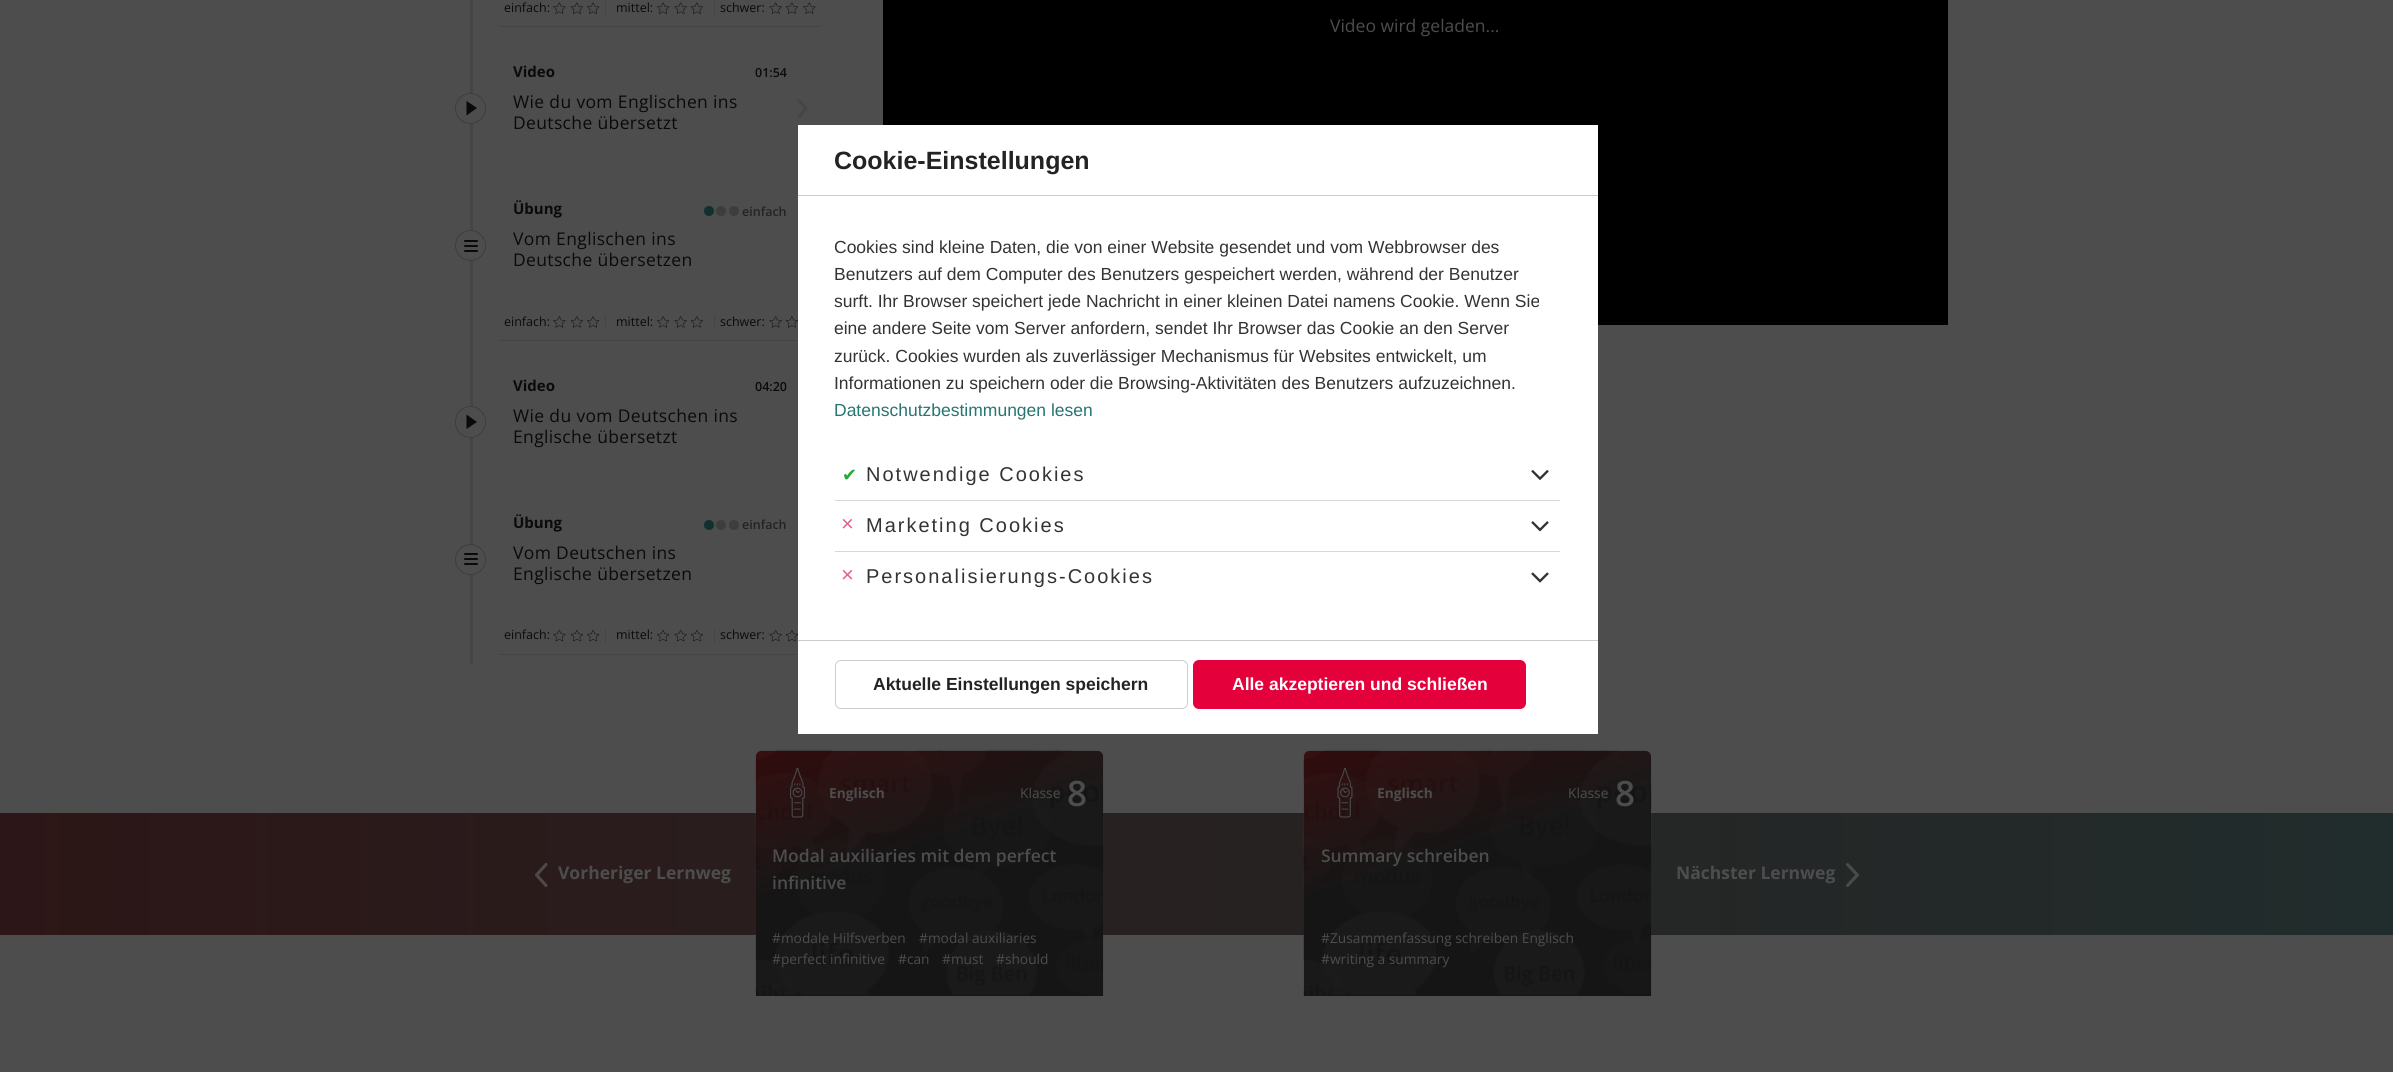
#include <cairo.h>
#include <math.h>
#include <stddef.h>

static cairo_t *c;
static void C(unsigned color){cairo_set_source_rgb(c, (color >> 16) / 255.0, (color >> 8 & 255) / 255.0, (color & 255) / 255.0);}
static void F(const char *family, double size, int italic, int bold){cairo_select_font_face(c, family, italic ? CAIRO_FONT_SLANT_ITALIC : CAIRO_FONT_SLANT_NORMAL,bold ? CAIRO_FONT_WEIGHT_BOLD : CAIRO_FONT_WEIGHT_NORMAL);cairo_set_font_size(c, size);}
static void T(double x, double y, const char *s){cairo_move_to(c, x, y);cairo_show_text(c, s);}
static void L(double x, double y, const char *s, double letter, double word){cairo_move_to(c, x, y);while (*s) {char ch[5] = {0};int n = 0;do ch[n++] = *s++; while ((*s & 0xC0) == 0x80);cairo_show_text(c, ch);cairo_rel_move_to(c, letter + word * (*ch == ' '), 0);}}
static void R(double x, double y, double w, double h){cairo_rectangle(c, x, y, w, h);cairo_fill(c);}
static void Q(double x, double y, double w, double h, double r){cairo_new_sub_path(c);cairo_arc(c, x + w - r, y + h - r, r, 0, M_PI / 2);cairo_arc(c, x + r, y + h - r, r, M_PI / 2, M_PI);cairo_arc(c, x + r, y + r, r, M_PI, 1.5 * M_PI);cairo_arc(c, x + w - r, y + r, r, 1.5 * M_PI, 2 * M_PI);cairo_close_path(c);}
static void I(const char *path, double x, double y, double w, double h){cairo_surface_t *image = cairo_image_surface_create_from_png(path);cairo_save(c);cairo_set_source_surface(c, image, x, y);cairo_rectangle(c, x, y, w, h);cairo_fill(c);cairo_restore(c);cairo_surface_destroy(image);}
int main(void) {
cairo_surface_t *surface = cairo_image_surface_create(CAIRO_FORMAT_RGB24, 2393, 1072);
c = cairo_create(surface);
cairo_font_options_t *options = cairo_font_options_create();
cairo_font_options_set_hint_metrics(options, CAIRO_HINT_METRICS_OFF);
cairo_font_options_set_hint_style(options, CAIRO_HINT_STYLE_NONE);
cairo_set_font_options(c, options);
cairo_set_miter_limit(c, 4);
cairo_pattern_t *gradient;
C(0x4d4d4d);
cairo_paint(c);
C(0x454545);
R(470,0,3,94);
F("Open Sans",12.5,0,0);
C(0x0a0a0a);
T(504,12,"einfach:");
I("1.png",553,2,13,12);
I("2.png",570,2,13,12);
I("3.png",587,2,13,12);
C(0x454545);
R(605,1,1,14);
C(0x0a0a0a);
T(616,12,"mittel:");
I("3.png",657,2,13,12);
I("4.png",674,2,13,12);
I("2.png",690,2,13,12);
C(0x454545);
R(714,1,1,14);
C(0x0a0a0a);
T(720,12,"schwer:");
I("4.png",769,2,13,12);
I("2.png",785,2,13,12);
I("1.png",803,2,13,12);
C(0x454545);
R(499,26,322,1);
R(470,123,3,108);
C(0x4d4d4d);
cairo_arc(c,470.5,108.5,15,0,2 * M_PI);
cairo_fill_preserve(c);
C(0x3d3d3d);
cairo_set_line_width(c,1);
cairo_stroke(c);
C(0x0a0a0a);
cairo_new_path(c);
cairo_move_to(c,466.5,101);
cairo_line_to(c,477,108);
cairo_line_to(c,466.5,115.5);
cairo_close_path(c);
cairo_fill(c);
cairo_new_path(c);
cairo_move_to(c,799,100.5);
cairo_line_to(c,806,108.5);
cairo_line_to(c,799,117);
C(0x454545);
cairo_set_line_width(c,3.1);
cairo_set_line_cap(c,CAIRO_LINE_CAP_ROUND);
cairo_set_line_join(c,CAIRO_LINE_JOIN_ROUND);
cairo_stroke(c);
F("Open Sans",15,0,1);
C(0x0a0a0a);
T(513,77,"Video");
F("Open Sans SemiBold",12.5,0,0);
T(755,77,"01:54");
F("Open Sans",17.5,0,0);
L(513,108,"Wie du vom Englischen ins",.35,0);
L(513,129,"Deutsche übersetzt",.35,0);
C(0x454545);
R(470,260,3,147);
C(0x4d4d4d);
cairo_new_path(c);
cairo_arc(c,470.5,245.5,15,0,2 * M_PI);
cairo_fill_preserve(c);
C(0x3d3d3d);
cairo_set_line_width(c,1);
cairo_set_line_cap(c,CAIRO_LINE_CAP_BUTT);
cairo_set_line_join(c,CAIRO_LINE_JOIN_MITER);
cairo_stroke(c);
C(0x0a0a0a);
Q(464,240,14,2,1);
cairo_fill(c);
Q(464,245,14,2,1);
cairo_fill(c);
Q(464,250,14,2,1);
cairo_fill(c);
cairo_new_path(c);
cairo_move_to(c,799,238);
cairo_line_to(c,806,246);
cairo_line_to(c,799,254.5);
C(0x454545);
cairo_set_line_width(c,3.1);
cairo_set_line_cap(c,CAIRO_LINE_CAP_ROUND);
cairo_set_line_join(c,CAIRO_LINE_JOIN_ROUND);
cairo_stroke(c);
F("Open Sans",15,0,1);
C(0x0a0a0a);
T(513,214,"Übung");
C(0x103130);
cairo_new_path(c);
cairo_arc(c,709,211,5,0,2 * M_PI);
cairo_fill(c);
C(0x3d3d3d);
cairo_arc(c,721,211,5,0,2 * M_PI);
cairo_fill(c);
cairo_arc(c,734,211,5,0,2 * M_PI);
cairo_fill(c);
F("Open Sans SemiBold",12.5,0,0);
C(0x232323);
T(742,216,"einfach");
F("Open Sans",17.5,0,0);
C(0x0a0a0a);
L(513,245,"Vom Englischen ins",.35,0);
L(513,266,"Deutsche übersetzen",.35,0);
F("Open Sans",12.5,0,0);
T(504,326,"einfach:");
I("5.png",553,316,13,12);
I("6.png",570,316,13,12);
I("7.png",587,316,13,12);
C(0x454545);
R(605,315,1,14);
C(0x0a0a0a);
T(616,326,"mittel:");
I("7.png",657,316,13,12);
I("8.png",674,316,13,12);
I("6.png",690,316,13,12);
C(0x454545);
R(714,315,1,14);
C(0x0a0a0a);
T(720,326,"schwer:");
I("8.png",769,316,13,12);
I("6.png",785,316,13,12);
C(0x454545);
R(499,340,299,1);
R(470,437,3,108);
C(0x4d4d4d);
Q(455.5,406.5,30,31,15);
cairo_fill_preserve(c);
C(0x3d3d3d);
cairo_set_line_width(c,1);
cairo_set_line_cap(c,CAIRO_LINE_CAP_BUTT);
cairo_set_line_join(c,CAIRO_LINE_JOIN_MITER);
cairo_stroke(c);
C(0x0a0a0a);
cairo_new_path(c);
cairo_move_to(c,466.5,414.5);
cairo_line_to(c,477,422);
cairo_line_to(c,466.5,429);
cairo_close_path(c);
cairo_fill(c);
cairo_new_path(c);
cairo_move_to(c,799,414.5);
cairo_line_to(c,806,422.5);
cairo_line_to(c,799,430.5);
C(0x454545);
cairo_set_line_width(c,3.1);
cairo_set_line_cap(c,CAIRO_LINE_CAP_ROUND);
cairo_set_line_join(c,CAIRO_LINE_JOIN_ROUND);
cairo_stroke(c);
F("Open Sans",15,0,1);
C(0x0a0a0a);
T(513,391,"Video");
F("Open Sans SemiBold",12.5,0,0);
T(755,391,"04:20");
F("Open Sans",17.5,0,0);
L(513,422,"Wie du vom Deutschen ins",.35,0);
L(513,443,"Englische übersetzt",.35,0);
C(0x454545);
R(470,574,3,90);
C(0x4d4d4d);
cairo_new_path(c);
cairo_arc(c,470.5,559.5,15,0,2 * M_PI);
cairo_fill_preserve(c);
C(0x3d3d3d);
cairo_set_line_width(c,1);
cairo_set_line_cap(c,CAIRO_LINE_CAP_BUTT);
cairo_set_line_join(c,CAIRO_LINE_JOIN_MITER);
cairo_stroke(c);
C(0x0a0a0a);
Q(464,553,14,2,1);
cairo_fill(c);
Q(464,558,14,2,1);
cairo_fill(c);
Q(464,563,14,2,1);
cairo_fill(c);
cairo_new_path(c);
cairo_move_to(c,799,552);
cairo_line_to(c,806,560);
cairo_line_to(c,799,568);
C(0x454545);
cairo_set_line_width(c,3.1);
cairo_set_line_cap(c,CAIRO_LINE_CAP_ROUND);
cairo_set_line_join(c,CAIRO_LINE_JOIN_ROUND);
cairo_stroke(c);
F("Open Sans",15,0,1);
C(0x0a0a0a);
T(513,528,"Übung");
C(0x103130);
cairo_new_path(c);
cairo_arc(c,709,525,5,0,2 * M_PI);
cairo_fill(c);
C(0x3d3d3d);
cairo_arc(c,721,525,5,0,2 * M_PI);
cairo_fill(c);
cairo_arc(c,734,525,5,0,2 * M_PI);
cairo_fill(c);
F("Open Sans SemiBold",12.5,0,0);
C(0x232323);
T(742,529,"einfach");
F("Open Sans",17.5,0,0);
C(0x0a0a0a);
L(513,559,"Vom Deutschen ins",.35,0);
L(513,580,"Englische übersetzen",.35,0);
F("Open Sans",12.5,0,0);
T(504,639,"einfach:");
I("9.png",553,630,13,12);
I("10.png",570,630,13,12);
I("11.png",587,630,13,12);
C(0x454545);
R(605,629,1,14);
C(0x0a0a0a);
T(616,639,"mittel:");
I("11.png",657,630,13,12);
I("12.png",674,630,13,12);
I("10.png",690,630,13,12);
C(0x454545);
R(714,629,1,14);
C(0x0a0a0a);
T(720,639,"schwer:");
I("12.png",769,630,13,12);
I("10.png",785,630,13,12);
C(0x454545);
R(499,654,299,1);
C(0x000000);
R(883,0,1065,325);
F("Open Sans",17.5,0,0);
C(0x4d4d4d);
T(1330,32,"Video wird geladen...");
gradient = cairo_pattern_create_linear(-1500,874,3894,874);
cairo_pattern_add_color_stop_rgba(gradient,0,0.204,0.031,0.035,1);
cairo_pattern_add_color_stop_rgba(gradient,1,0.102,0.231,0.227,1);
cairo_set_source(c,gradient);
cairo_pattern_destroy(gradient);
R(0,813,2393,122);
cairo_new_path(c);
cairo_move_to(c,546,864.5);
cairo_line_to(c,536.5,875);
cairo_line_to(c,546,885.5);
C(0x4b4a4a);
cairo_stroke(c);
F("Open Sans",17.5,0,1);
C(0x4d4d4d);
T(558,879,"Vorheriger Lernweg");
gradient = cairo_pattern_create_linear(877,712,982,1035);
cairo_pattern_add_color_stop_rgba(gradient,0,0.204,0.031,0.035,1);
cairo_pattern_add_color_stop_rgba(gradient,.42,0.075,0.075,0.075,1);
cairo_set_source(c,gradient);
cairo_pattern_destroy(gradient);
cairo_new_path(c);
cairo_move_to(c,762,751);
cairo_line_to(c,1097,751);
cairo_curve_to(c,1100.5,751,1103,753.5,1103,757);
cairo_line_to(c,1103,996);
cairo_line_to(c,756,996);
cairo_line_to(c,756,757);
cairo_curve_to(c,756,753.5,758.5,751,762,751);
cairo_close_path(c);
cairo_fill(c);
I("13.png",755,749,349,247);
gradient = cairo_pattern_create_linear(877,712,982,1035);
cairo_pattern_add_color_stop_rgba(gradient,0,0.204,0.031,0.035,.85);
cairo_pattern_add_color_stop_rgba(gradient,.42,0.075,0.075,0.075,.85);
cairo_set_source(c,gradient);
cairo_pattern_destroy(gradient);
cairo_new_path(c);
cairo_move_to(c,762,751);
cairo_line_to(c,1097,751);
cairo_curve_to(c,1100.5,751,1103,753.5,1103,757);
cairo_line_to(c,1103,996);
cairo_line_to(c,756,996);
cairo_line_to(c,756,757);
cairo_curve_to(c,756,753.5,758.5,751,762,751);
cairo_close_path(c);
cairo_fill(c);
I("14.png",790,768,15,50);
F("Open Sans",13.75,0,1);
C(0x4d4d4d);
T(829,798,"Englisch");
F("Open Sans",13.75,0,0);
T(1020,798,"Klasse");
F("Open Sans SemiBold",35,0,0);
T(1067,806,"8");
F("Open Sans SemiBold",17.5,0,0);
T(772,862,"Modal auxiliaries mit dem perfect");
T(772,889,"infinitive");
F("Open Sans",13.75,0,0);
T(772,943,"#modale Hilfsverben");
T(919,943,"#modal auxiliaries");
T(772,964,"#perfect infinitive");
T(898,964,"#can");
T(942,964,"#must");
T(996,964,"#should");
gradient = cairo_pattern_create_linear(1425,712,1530,1036);
cairo_pattern_add_color_stop_rgba(gradient,0,0.204,0.031,0.035,1);
cairo_pattern_add_color_stop_rgba(gradient,.42,0.075,0.075,0.075,1);
cairo_set_source(c,gradient);
cairo_pattern_destroy(gradient);
cairo_new_path(c);
cairo_move_to(c,1310,751);
cairo_line_to(c,1645,751);
cairo_curve_to(c,1648.5,751,1651,753.5,1651,757);
cairo_line_to(c,1651,996);
cairo_line_to(c,1304,996);
cairo_line_to(c,1304,757);
cairo_curve_to(c,1304,753.5,1306.5,751,1310,751);
cairo_close_path(c);
cairo_fill(c);
I("15.png",1303,749,349,247);
gradient = cairo_pattern_create_linear(1425,712,1530,1036);
cairo_pattern_add_color_stop_rgba(gradient,0,0.204,0.031,0.035,.85);
cairo_pattern_add_color_stop_rgba(gradient,.42,0.075,0.075,0.075,.85);
cairo_set_source(c,gradient);
cairo_pattern_destroy(gradient);
cairo_new_path(c);
cairo_move_to(c,1310,751);
cairo_line_to(c,1645,751);
cairo_curve_to(c,1648.5,751,1651,753.5,1651,757);
cairo_line_to(c,1651,996);
cairo_line_to(c,1304,996);
cairo_line_to(c,1304,757);
cairo_curve_to(c,1304,753.5,1306.5,751,1310,751);
cairo_close_path(c);
cairo_fill(c);
I("16.png",1337,768,16,50);
F("Open Sans",13.75,0,1);
C(0x4d4d4d);
T(1377,798,"Englisch");
F("Open Sans",13.75,0,0);
T(1568,798,"Klasse");
F("Open Sans SemiBold",35,0,0);
T(1615,806,"8");
F("Open Sans SemiBold",17.5,0,0);
T(1321,862,"Summary schreiben");
F("Open Sans",13.75,0,0);
T(1321,943,"#Zusammenfassung schreiben Englisch");
T(1321,964,"#writing a summary");
F("Open Sans",17.5,0,1);
T(1676,879,"Nächster Lernweg");
cairo_new_path(c);
cairo_move_to(c,1847.5,864.5);
cairo_line_to(c,1857.5,875);
cairo_line_to(c,1847.5,885.5);
C(0x4a4b4b);
cairo_stroke(c);
C(0xffffff);
R(798,125,800,609);
C(0xcccccc);
R(798,195,800,1);
F("Liberation Sans",25,0,1);
C(0x232323);
T(834,169,"Cookie-Einstellungen");
F("Liberation Sans",17.5,0,0);
C(0x333333);
T(834,253,"Cookies sind kleine Daten, die von einer Website gesendet und vom Webbrowser des");
T(834,280,"Benutzers auf dem Computer des Benutzers gespeichert werden, während der Benutzer");
T(834,307,"surft. Ihr Browser speichert jede Nachricht in einer kleinen Datei namens Cookie. Wenn Sie");
T(834,334,"eine andere Seite vom Server anfordern, sendet Ihr Browser das Cookie an den Server");
T(834,362,"zurück. Cookies wurden als zuverlässiger Mechanismus für Websites entwickelt, um");
T(834,389,"Informationen zu speichern oder die Browsing-Aktivitäten des Benutzers aufzuzeichnen.");
C(0x267572);
T(834,416,"Datenschutzbestimmungen lesen");
F("DejaVu Sans",18,0,0);
C(0x28a834);
L(842,481,"✔",2,0);
F("Liberation Sans",20,0,0);
C(0x333333);
L(866,481,"Notwendige Cookies",2,0);
I("17.png",1531,470,18,10);
C(0xd8d8d8);
R(835,500,725,1);
F("Liberation Sans",22,0,0);
C(0xe56385);
L(841,531,"×",2,0);
F("Liberation Sans",20,0,0);
C(0x333333);
L(866,532,"Marketing Cookies",2,0);
I("18.png",1531,521,18,11);
C(0xd8d8d8);
R(835,551,725,1);
F("Liberation Sans",22,0,0);
C(0xe56385);
L(841,582,"×",2,0);
F("Liberation Sans",20,0,0);
C(0x333333);
L(866,583,"Personalisierungs-Cookies",2,0);
I("19.png",1531,572,18,11);
C(0xcccccc);
R(798,640,800,1);
Q(835.5,660.5,352,48,5.5);
cairo_set_line_width(c,1);
cairo_set_line_cap(c,CAIRO_LINE_CAP_BUTT);
cairo_set_line_join(c,CAIRO_LINE_JOIN_MITER);
cairo_stroke(c);
F("Liberation Sans",17.5,0,1);
C(0x232323);
T(873,690,"Aktuelle Einstellungen speichern");
C(0xe4003a);
Q(1193,660,333,49,6);
cairo_fill(c);
C(0xffffff);
T(1232,690,"Alle akzeptieren und schließen");
cairo_surface_write_to_png(surface, "o.png");
cairo_font_options_destroy(options);
cairo_destroy(c);
cairo_surface_destroy(surface);
return 0;
}
